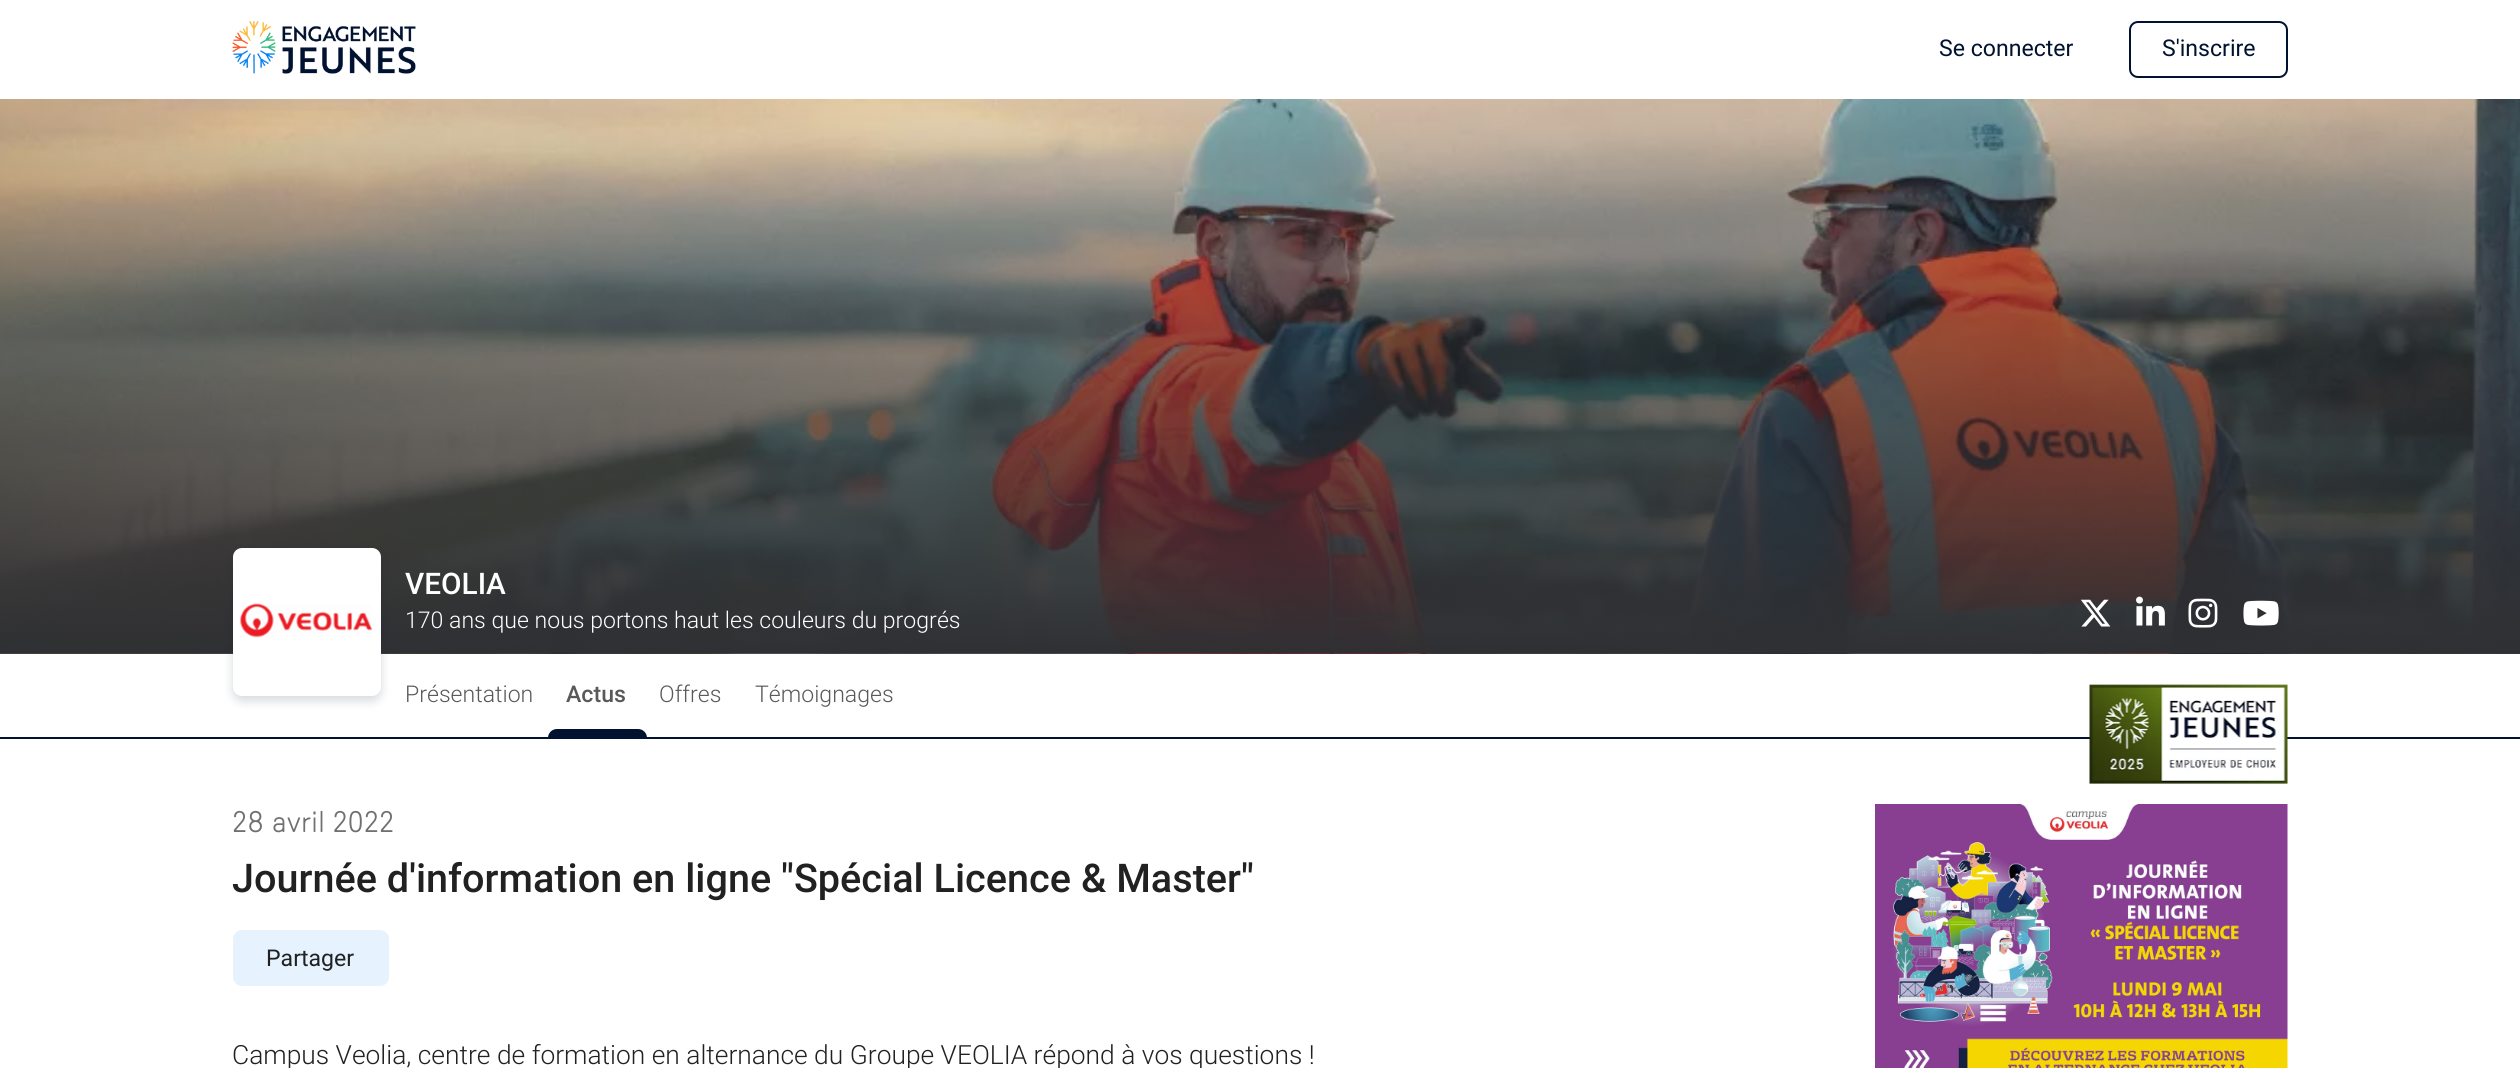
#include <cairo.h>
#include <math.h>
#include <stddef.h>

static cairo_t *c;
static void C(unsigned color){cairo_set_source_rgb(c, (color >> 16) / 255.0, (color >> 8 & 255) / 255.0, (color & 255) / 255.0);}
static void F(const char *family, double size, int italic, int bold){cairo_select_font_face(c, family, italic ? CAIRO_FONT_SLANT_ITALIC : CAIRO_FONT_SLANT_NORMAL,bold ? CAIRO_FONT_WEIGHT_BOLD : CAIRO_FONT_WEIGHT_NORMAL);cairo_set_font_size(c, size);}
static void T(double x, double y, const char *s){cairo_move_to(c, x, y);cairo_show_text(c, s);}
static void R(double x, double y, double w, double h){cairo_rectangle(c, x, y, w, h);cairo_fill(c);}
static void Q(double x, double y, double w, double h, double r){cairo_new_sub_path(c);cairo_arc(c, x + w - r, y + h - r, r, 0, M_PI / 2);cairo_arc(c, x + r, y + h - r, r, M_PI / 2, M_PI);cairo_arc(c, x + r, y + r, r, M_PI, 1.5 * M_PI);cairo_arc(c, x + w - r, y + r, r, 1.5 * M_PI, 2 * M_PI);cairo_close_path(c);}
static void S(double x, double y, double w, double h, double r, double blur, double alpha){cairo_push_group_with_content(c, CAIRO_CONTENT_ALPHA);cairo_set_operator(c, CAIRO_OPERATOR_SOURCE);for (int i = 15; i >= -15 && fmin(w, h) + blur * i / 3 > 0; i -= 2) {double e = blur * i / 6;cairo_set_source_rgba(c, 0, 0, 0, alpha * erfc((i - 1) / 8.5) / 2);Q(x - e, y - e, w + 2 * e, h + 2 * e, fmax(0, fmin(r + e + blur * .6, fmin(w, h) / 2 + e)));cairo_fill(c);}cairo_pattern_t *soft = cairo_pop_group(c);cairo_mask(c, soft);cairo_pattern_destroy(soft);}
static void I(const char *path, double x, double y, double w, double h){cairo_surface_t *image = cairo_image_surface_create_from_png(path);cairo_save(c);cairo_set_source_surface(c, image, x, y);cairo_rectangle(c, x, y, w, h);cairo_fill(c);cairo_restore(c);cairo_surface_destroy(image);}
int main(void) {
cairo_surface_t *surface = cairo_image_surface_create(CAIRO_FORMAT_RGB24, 2520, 1068);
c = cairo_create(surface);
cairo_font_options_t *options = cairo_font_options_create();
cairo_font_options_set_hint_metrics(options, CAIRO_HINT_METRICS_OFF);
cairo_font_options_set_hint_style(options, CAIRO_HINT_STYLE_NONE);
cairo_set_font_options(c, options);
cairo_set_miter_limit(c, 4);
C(0xffffff);
cairo_paint(c);
I("1.png",232,21,184,53);
F("Roboto",23.1,0,0);
C(0x001230);
T(1939,56,"Se connecter");
Q(2130,22,157,55,8);
cairo_stroke(c);
T(2162,56,"S'inscrire");
I("2.png",0,99,2520,555);
C(0x001230);
S(233,552,148,149,9,5,.16);
C(0xffffff);
Q(233,548,148,148,9);
cairo_fill(c);
I("3.png",240,603,133,35);
F("Roboto Medium",29.75,0,0);
T(405,594,"VEOLIA");
F("Roboto Light",23.1,0,0);
T(405,628,"170 ans que nous portons haut les couleurs du progrés");
I("4.png",2080,599,31,28);
I("5.png",2136,596,29,30);
I("6.png",2188,598,30,30);
I("7.png",2243,600,36,26);
C(0x001230);
R(0,737,2520,2);
C(0x595959);
T(405,702,"Présentation");
F("Roboto Medium",23.1,0,0);
T(566,702,"Actus");
C(0x001230);
cairo_new_path(c);
cairo_move_to(c,557,729);
cairo_line_to(c,638,729);
cairo_curve_to(c,643,729,647,733,647,738);
cairo_line_to(c,548,738);
cairo_curve_to(c,548,733,552,729,557,729);
cairo_close_path(c);
cairo_fill(c);
F("Roboto Light",23.1,0,0);
C(0x595959);
T(659,702,"Offres");
T(755,702,"Témoignages");
I("8.png",2089,684,199,100);
F("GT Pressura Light",29.75,0,0);
C(0x707070);
T(232,832,"28 avril 2022");
F("Roboto Medium",39.6,0,0);
C(0x212121);
T(232,892,"Journée d'information en ligne \"Spécial Licence & Master\"");
C(0xe6f3ff);
Q(233,930,156,56,9);
cairo_fill(c);
F("Roboto",23.1,0,0);
C(0x212121);
T(266,966,"Partager");
F("Roboto Light",26.4,0,0);
T(232,1064,"Campus Veolia, centre de formation en alternance du Groupe VEOLIA répond à vos questions !");
I("9.png",1875,804,413,264);
cairo_surface_write_to_png(surface, "o.png");
cairo_font_options_destroy(options);
cairo_destroy(c);
cairo_surface_destroy(surface);
return 0;
}
